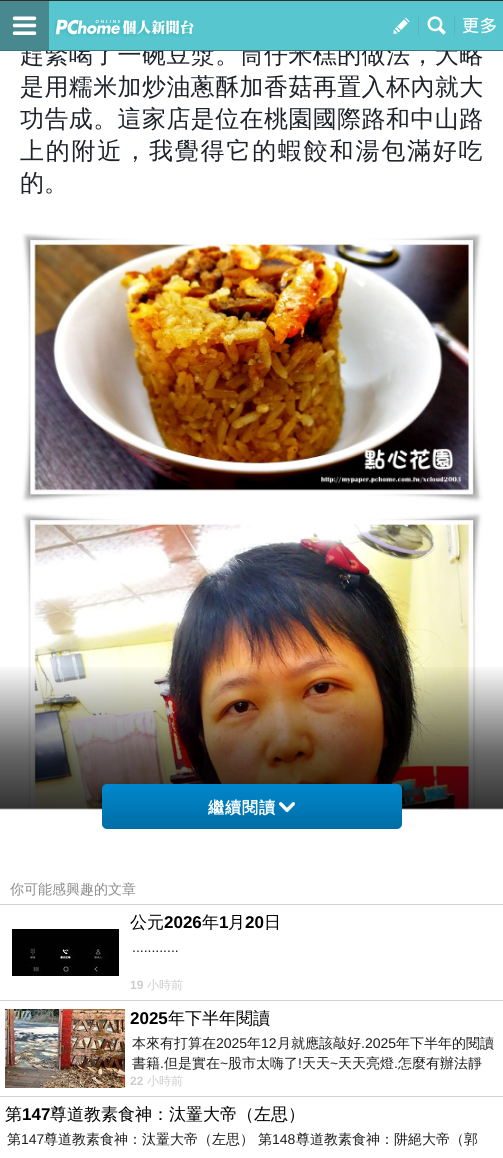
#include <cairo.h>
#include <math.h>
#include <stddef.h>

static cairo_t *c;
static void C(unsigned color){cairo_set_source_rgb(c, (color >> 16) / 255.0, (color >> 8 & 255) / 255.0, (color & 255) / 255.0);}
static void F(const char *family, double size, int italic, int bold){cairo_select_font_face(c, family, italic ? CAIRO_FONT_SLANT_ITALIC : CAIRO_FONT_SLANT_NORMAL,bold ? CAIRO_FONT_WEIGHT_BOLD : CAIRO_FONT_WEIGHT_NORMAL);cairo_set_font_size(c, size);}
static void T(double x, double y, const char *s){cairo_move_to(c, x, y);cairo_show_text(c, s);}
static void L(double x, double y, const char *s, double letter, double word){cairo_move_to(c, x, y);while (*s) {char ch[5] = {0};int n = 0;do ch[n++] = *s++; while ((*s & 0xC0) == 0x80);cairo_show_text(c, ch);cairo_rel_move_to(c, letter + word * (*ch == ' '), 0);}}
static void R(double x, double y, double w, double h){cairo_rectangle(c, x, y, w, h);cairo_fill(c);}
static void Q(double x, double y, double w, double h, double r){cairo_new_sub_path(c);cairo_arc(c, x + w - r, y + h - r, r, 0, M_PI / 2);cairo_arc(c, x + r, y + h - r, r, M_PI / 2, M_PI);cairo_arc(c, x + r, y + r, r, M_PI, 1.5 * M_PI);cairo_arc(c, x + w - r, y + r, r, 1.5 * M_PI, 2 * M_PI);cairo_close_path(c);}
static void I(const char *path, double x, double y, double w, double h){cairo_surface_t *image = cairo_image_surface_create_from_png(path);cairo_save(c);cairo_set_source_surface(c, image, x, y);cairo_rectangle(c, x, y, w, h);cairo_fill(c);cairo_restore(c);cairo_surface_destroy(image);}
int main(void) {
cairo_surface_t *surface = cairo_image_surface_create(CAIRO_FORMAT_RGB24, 503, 1158);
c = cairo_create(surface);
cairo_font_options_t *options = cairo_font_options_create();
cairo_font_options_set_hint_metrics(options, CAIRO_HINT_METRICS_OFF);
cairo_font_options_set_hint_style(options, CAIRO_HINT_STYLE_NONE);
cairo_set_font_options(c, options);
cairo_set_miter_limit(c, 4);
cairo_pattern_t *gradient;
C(0xffffff);
cairo_paint(c);
F("WenQuanYi Zen Hei Medium",24,0,0);
C(0x1d2129);
L(20,63,"趕緊喝了一碗豆漿。筒仔米榚的做法，大略",.4,0);
C(0x58c6ce);
R(0,1,503,49);
C(0x2f2f2f);
R(0,0,503,1);
C(0x34787d);
R(0,50,503,1);
I("1.png",0,1,49,49);
I("2.png",54,18,140,19);
I("3.png",393,15,26,20);
I("4.png",427,16,19,19);
I("5.png",454,16,42,20);
C(0x1d2129);
L(20,95,"是用糯米加炒油蔥酥加香菇再置入杯內就大",.4,0);
L(20,127,"功告成。這家店是位在桃園國際路和中山路",.4,0);
L(20,159,"上的附近，我覺得它的蝦餃和湯包滿好吃",1.8,0);
T(20,191,"的。");
I("6.png",22,233,461,270);
I("7.png",22,512,461,298);
gradient = cairo_pattern_create_linear(252,664,252,844);
cairo_pattern_add_color_stop_rgba(gradient,0,0,0,0,0);
cairo_pattern_add_color_stop_rgba(gradient,.5,0,0,0,.6);
cairo_pattern_add_color_stop_rgba(gradient,.8,0,0,0,.8);
cairo_pattern_add_color_stop_rgba(gradient,.81,1,1,1,1);
cairo_set_source(c,gradient);
cairo_pattern_destroy(gradient);
R(0,667,503,143);
gradient = cairo_pattern_create_linear(252,784,252,829);
cairo_pattern_add_color_stop_rgba(gradient,0,0.004,0.529,0.804,1);
cairo_pattern_add_color_stop_rgba(gradient,1,0,0.431,0.647,1);
cairo_set_source(c,gradient);
cairo_pattern_destroy(gradient);
Q(102,784,300,45,5);
cairo_fill(c);
F("WenQuanYi Zen Hei",16,0,1);
C(0xffffff);
L(208,813,"繼續閱讀",1,0);
I("8.png",279,802,16,11);
C(0xd3d3d3);
R(0,904,503,1);
F("WenQuanYi Zen Hei Medium",14,0,0);
C(0x8b8b8b);
T(10,894,"你可能感興趣的文章");
C(0xd3d3d3);
R(0,1000,503,1);
F("WenQuanYi Zen Hei Medium",17,0,0);
C(0x000000);
T(130,928,"公元");
F("Liberation Sans",17,0,1);
T(164,928,"2026");
F("WenQuanYi Zen Hei Medium",17,0,0);
T(202,928,"年");
F("Liberation Sans",17,0,1);
T(219,928,"1");
F("WenQuanYi Zen Hei Medium",17,0,0);
T(228,928,"月");
F("Liberation Sans",17,0,1);
T(245,928,"20");
F("WenQuanYi Zen Hei Medium",17,0,0);
T(264,928,"日");
I("9.png",12,929,107,47);
F("Liberation Sans",14,0,0);
C(0x1e1e1e);
T(132,952,"............");
F("Liberation Sans",12,0,1);
C(0xcccccc);
T(130,989,"19");
F("WenQuanYi Zen Hei Medium",12,0,0);
T(147,989,"小時前");
C(0xd3d3d3);
R(0,1096,503,1);
I("10.png",5,1009,120,79);
F("Liberation Sans",17,0,1);
C(0x000000);
T(130,1024,"2025");
F("WenQuanYi Zen Hei Medium",17,0,0);
T(168,1024,"年下半年閱讀");
F("WenQuanYi Zen Hei Medium",14,0,0);
C(0x1e1e1e);
T(132,1048,"本來有打算在");
F("Liberation Sans",14,0,0);
T(216,1048,"2025");
F("WenQuanYi Zen Hei Medium",14,0,0);
T(247,1048,"年");
F("Liberation Sans",14,0,0);
T(261,1048,"12");
F("WenQuanYi Zen Hei Medium",14,0,0);
T(277,1048,"月就應該敲好");
F("Liberation Sans",14,0,0);
T(361,1048,".2025");
F("WenQuanYi Zen Hei Medium",14,0,0);
T(396,1048,"年下半年的閱讀");
T(132,1068,"書籍");
T(164,1068,"但是實在");
F("Liberation Sans",14,0,0);
T(220,1068,"~");
F("WenQuanYi Zen Hei Medium",14,0,0);
T(228,1068,"股市太嗨了");
F("Liberation Sans",14,0,0);
T(298,1068,"!");
F("WenQuanYi Zen Hei Medium",14,0,0);
T(302,1068,"天天");
F("Liberation Sans",14,0,0);
T(330,1068,"~");
F("WenQuanYi Zen Hei Medium",14,0,0);
T(338,1068,"天天亮燈");
T(398,1068,"怎麼有辦法靜");
F("Liberation Sans",14,0,0);
T(160,1068,".");
T(394,1068,".");
F("Liberation Sans",12,0,1);
C(0xcccccc);
T(130,1085,"22");
F("WenQuanYi Zen Hei Medium",12,0,0);
T(147,1085,"小時前");
F("WenQuanYi Zen Hei Medium",17,0,0);
C(0x000000);
T(5,1120,"第");
F("Liberation Sans",17,0,1);
T(22,1120,"147");
F("WenQuanYi Zen Hei Medium",17,0,0);
T(50,1120,"尊道教素食神：汰罿大帝（左思）");
F("WenQuanYi Zen Hei Medium",14,0,0);
C(0x1e1e1e);
T(7,1144,"第");
F("Liberation Sans",14,0,0);
T(21,1144,"147");
F("WenQuanYi Zen Hei Medium",14,0,0);
T(44,1144,"尊道教素食神：汰罿大帝（左思）");
T(258,1144,"第");
F("Liberation Sans",14,0,0);
T(272,1144,"148");
F("WenQuanYi Zen Hei Medium",14,0,0);
T(296,1144,"尊道教素食神：阱絕大帝（郭");
cairo_surface_write_to_png(surface, "o.png");
cairo_font_options_destroy(options);
cairo_destroy(c);
cairo_surface_destroy(surface);
return 0;
}
